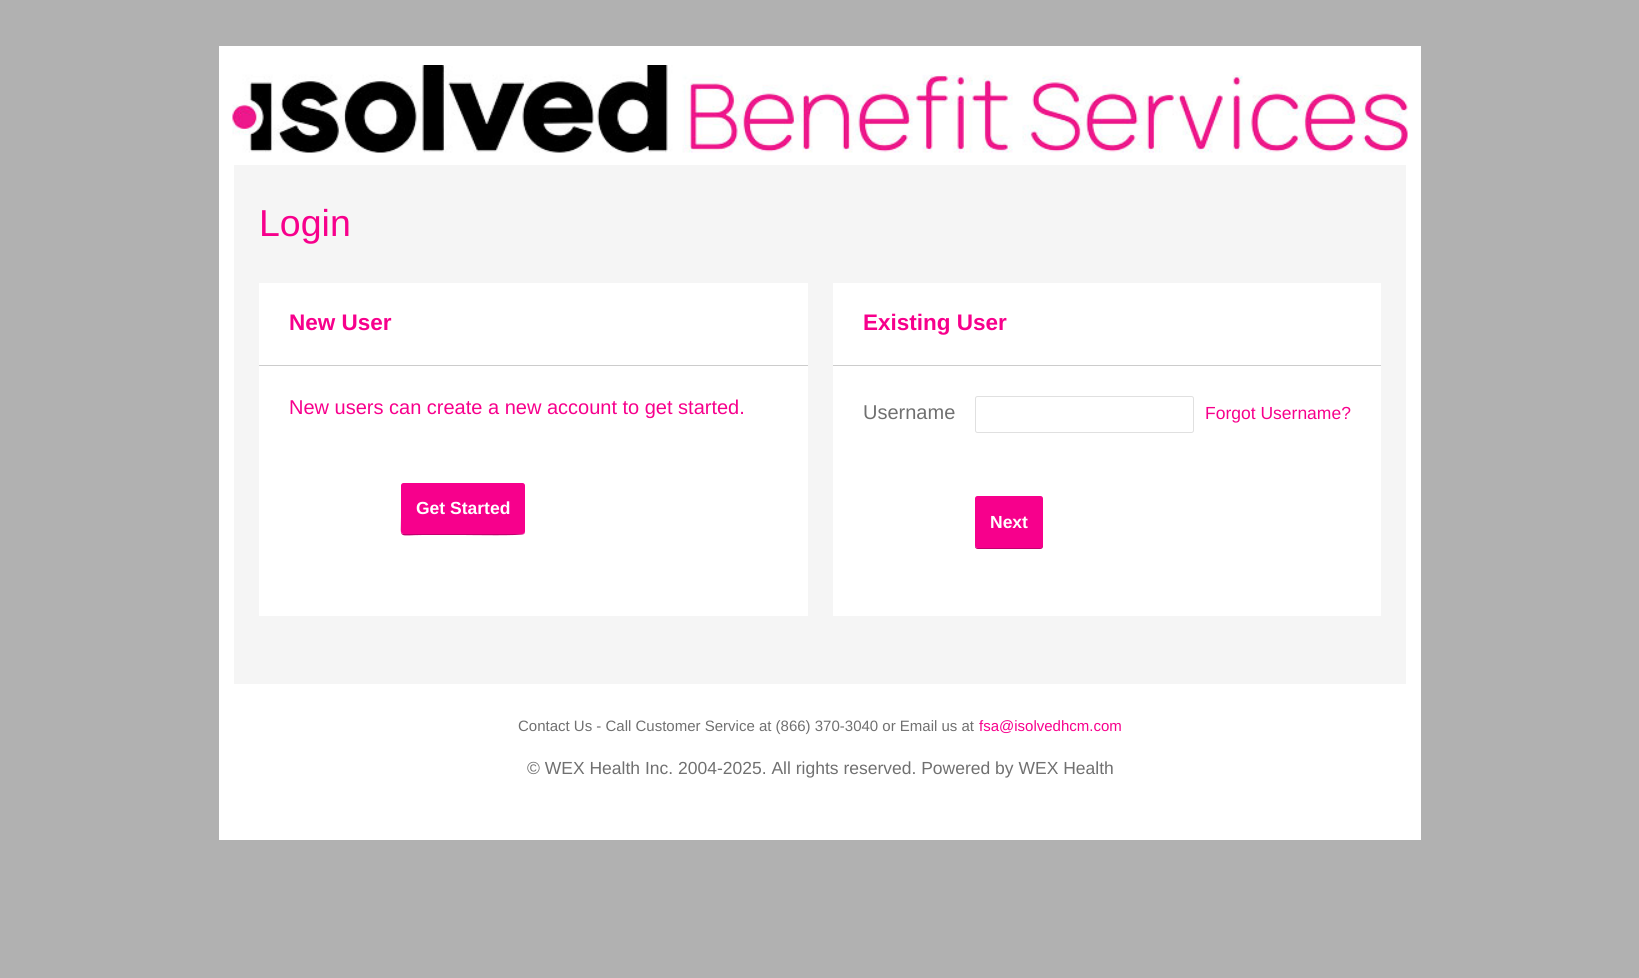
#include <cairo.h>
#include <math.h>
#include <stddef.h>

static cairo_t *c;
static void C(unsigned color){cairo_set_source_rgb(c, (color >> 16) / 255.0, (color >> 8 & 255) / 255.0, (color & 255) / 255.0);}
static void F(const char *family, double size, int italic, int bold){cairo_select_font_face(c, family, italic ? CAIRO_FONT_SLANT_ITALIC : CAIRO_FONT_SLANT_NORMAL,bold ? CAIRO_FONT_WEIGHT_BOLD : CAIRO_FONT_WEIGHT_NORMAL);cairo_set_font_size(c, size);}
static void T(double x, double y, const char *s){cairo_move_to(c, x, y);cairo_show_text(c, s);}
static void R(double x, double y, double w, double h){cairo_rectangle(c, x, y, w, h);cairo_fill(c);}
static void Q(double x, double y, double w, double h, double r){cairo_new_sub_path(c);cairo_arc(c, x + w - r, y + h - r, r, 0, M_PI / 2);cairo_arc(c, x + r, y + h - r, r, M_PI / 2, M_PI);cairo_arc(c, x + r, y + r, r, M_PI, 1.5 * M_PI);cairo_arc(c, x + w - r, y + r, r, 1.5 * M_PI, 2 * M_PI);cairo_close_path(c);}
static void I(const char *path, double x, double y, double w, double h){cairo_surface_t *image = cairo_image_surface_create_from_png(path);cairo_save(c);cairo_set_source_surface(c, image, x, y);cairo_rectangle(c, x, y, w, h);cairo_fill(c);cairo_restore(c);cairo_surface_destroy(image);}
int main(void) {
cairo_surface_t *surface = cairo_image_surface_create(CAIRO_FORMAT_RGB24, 1639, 978);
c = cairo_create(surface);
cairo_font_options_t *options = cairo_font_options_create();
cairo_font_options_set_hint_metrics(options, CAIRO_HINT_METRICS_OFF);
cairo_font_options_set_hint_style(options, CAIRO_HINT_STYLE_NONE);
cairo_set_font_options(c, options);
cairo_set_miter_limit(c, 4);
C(0xb1b1b1);
cairo_paint(c);
C(0xffffff);
R(219,46,1202,794);
I("1.png",232,65,1176,88);
C(0xf5f5f5);
R(234,165,1172,519);
F("Liberation Sans",37.5,0,0);
C(0xf7008c);
T(259,236,"Login");
C(0xffffff);
R(259,283,549,333);
C(0xcccccc);
R(259,365,549,1);
F("Liberation Sans",22.5,0,1);
C(0xf7008c);
T(289,330,"New User");
F("Liberation Sans",20,0,0);
T(289,414,"New users can create a new account to get started.");
C(0xc2006e);
cairo_new_path(c);
cairo_move_to(c,401,485);
cairo_line_to(c,401,517);
cairo_curve_to(c,401,540,397,535,423,535);
cairo_line_to(c,463,535);
cairo_curve_to(c,469,535,523,536,524,534);
cairo_curve_to(c,525,533,525,532,525,531);
cairo_curve_to(c,525,533,524,534,522,534);
cairo_line_to(c,404,534);
cairo_curve_to(c,402,534,401,533,401,531);
cairo_close_path(c);
cairo_fill(c);
C(0xf7008c);
Q(401,483,124,51,2.5);
cairo_fill(c);
F("Liberation Sans",17.5,0,1);
C(0xffffff);
T(416,514,"Get Started");
R(833,283,548,333);
C(0xcccccc);
R(833,365,548,1);
F("Liberation Sans",22.5,0,1);
C(0xf7008c);
T(863,330,"Existing User");
F("Liberation Sans",20,0,0);
C(0x707070);
T(863,419,"Username");
Q(975.5,396.5,218,36,2);
C(0xe0e0e0);
cairo_set_line_width(c,1);
cairo_stroke(c);
F("Liberation Sans",17.5,0,0);
C(0xf7008c);
T(1205,419,"Forgot Username?");
C(0xc2006e);
cairo_new_path(c);
cairo_move_to(c,975,545);
cairo_line_to(c,975,546);
cairo_curve_to(c,975,548,976,549,978,549);
cairo_line_to(c,1040,549);
cairo_curve_to(c,1042,549,1043,548,1043,546);
cairo_line_to(c,1043,500);
cairo_line_to(c,1042,499);
cairo_line_to(c,1042,545);
cairo_curve_to(c,1042,546,1041,548,1040,548);
cairo_line_to(c,978,548);
cairo_curve_to(c,976,548,975,546,975,545);
cairo_close_path(c);
cairo_fill(c);
C(0xf7008c);
Q(975,496,68,52,2.5);
cairo_fill(c);
F("Liberation Sans",17.5,0,1);
C(0xffffff);
T(990,528,"Next");
F("Liberation Sans",15,0,0);
C(0x707070);
T(518,731,"Contact Us - Call Customer Service at (866) 370-3040 or Email us at");
C(0xf7008c);
T(979,731,"fsa@isolvedhcm.com");
F("Liberation Sans",17.5,0,0);
C(0x707070);
T(527,774,"© WEX Health Inc. 2004-2025. All rights reserved. Powered by WEX Health");
cairo_surface_write_to_png(surface, "o.png");
cairo_font_options_destroy(options);
cairo_destroy(c);
cairo_surface_destroy(surface);
return 0;
}
